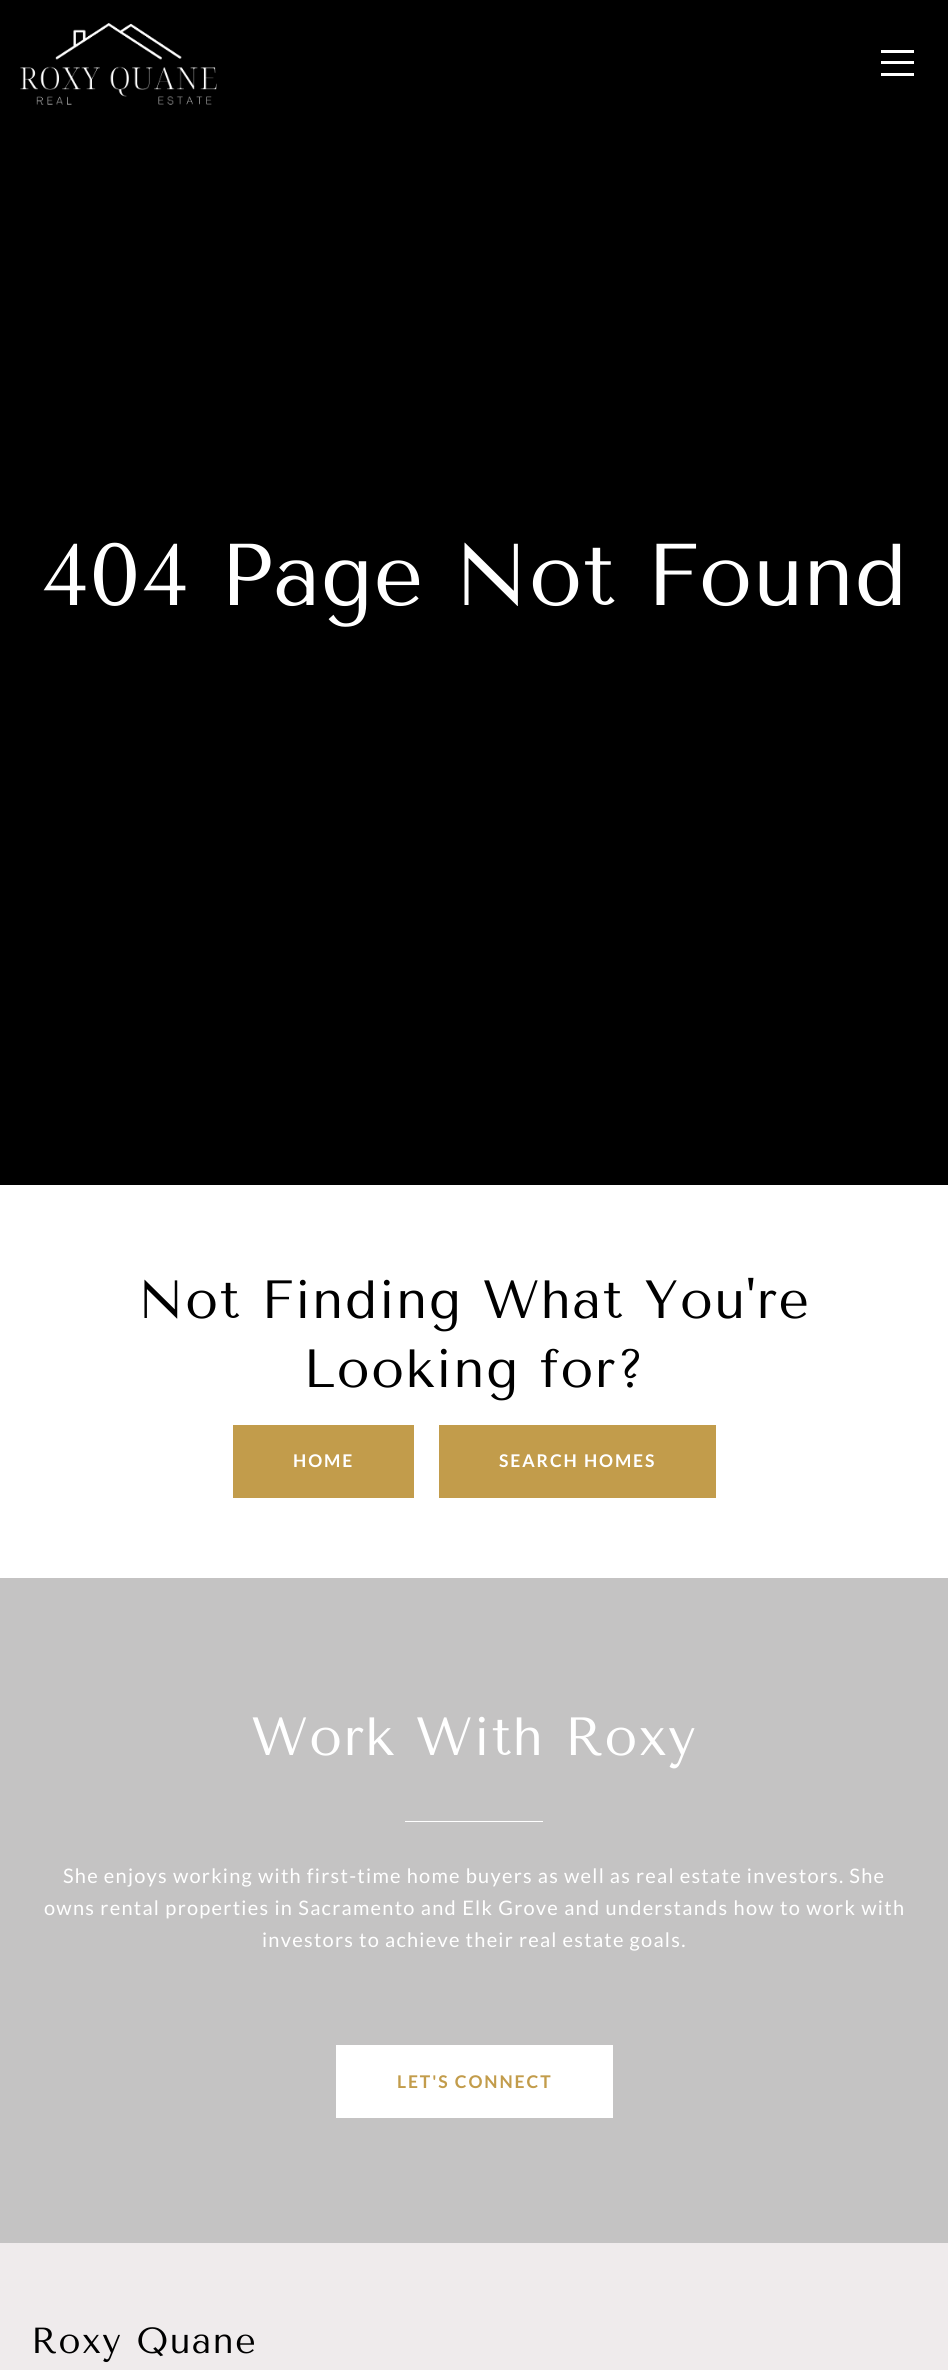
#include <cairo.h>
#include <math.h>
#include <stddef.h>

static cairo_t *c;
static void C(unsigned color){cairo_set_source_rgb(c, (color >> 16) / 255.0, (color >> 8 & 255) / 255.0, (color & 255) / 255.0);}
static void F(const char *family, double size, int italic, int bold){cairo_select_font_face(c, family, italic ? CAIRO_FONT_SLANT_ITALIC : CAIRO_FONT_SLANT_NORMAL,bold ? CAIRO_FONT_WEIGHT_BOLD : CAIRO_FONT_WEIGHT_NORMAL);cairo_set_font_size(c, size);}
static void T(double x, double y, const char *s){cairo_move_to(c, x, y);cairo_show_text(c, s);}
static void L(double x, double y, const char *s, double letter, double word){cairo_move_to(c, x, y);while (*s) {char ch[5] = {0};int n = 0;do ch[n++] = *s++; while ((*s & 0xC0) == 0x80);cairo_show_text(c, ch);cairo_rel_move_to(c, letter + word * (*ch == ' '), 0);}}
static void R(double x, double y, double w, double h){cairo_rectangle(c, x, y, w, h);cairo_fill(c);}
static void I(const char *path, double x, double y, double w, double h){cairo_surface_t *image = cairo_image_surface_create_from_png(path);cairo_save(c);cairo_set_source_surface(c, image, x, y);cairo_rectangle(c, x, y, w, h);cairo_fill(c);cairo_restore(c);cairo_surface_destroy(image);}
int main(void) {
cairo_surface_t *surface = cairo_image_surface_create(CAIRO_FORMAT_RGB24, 948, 2370);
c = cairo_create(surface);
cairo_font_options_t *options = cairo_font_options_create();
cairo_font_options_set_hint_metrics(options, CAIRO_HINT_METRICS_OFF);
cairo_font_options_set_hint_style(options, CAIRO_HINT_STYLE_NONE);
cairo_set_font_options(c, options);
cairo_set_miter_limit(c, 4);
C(0xffffff);
cairo_paint(c);
C(0x000000);
R(0,0,948,1185);
I("1.png",20,23,197,82);
C(0xffffff);
R(881,61,33,3);
R(881,50,33,3);
R(881,73,33,3);
F("Tenor Sans",87.5,0,0);
T(41,605,"404 Page Not Found");
F("Tenor Sans",53.75,0,0);
C(0x000000);
L(138,1318,"Not Finding What You're",1.25,0);
L(303,1387,"Looking for?",1.25,0);
C(0xc29c4b);
R(233,1425,181,73);
F("Lato",17.5,0,1);
C(0xffffff);
L(293,1467,"HOME",1.9,0);
C(0xc29c4b);
R(439,1425,277,73);
C(0xffffff);
L(499,1467,"SEARCH HOMES",1.9,0);
C(0xc4c3c3);
R(0,1578,948,665);
F("Tenor Sans",53.75,0,0);
C(0xffffff);
L(251,1755,"Work With Roxy",1.25,0);
R(405,1821,138,1);
F("Lato",20,0,0);
L(63,1883,"She enjoys working with first-time home buyers as well as real estate investors. She",1.25,-.25);
L(44,1915,"owns rental properties in Sacramento and Elk Grove and understands how to work with",1.25,0);
L(262,1947,"investors to achieve their real estate goals.",1.25,-.25);
R(336,2045,277,73);
F("Lato",17.5,0,1);
C(0xc29c4b);
L(397,2088,"LET'S CONNECT",1.9,0);
C(0xefebec);
R(0,2243,948,127);
F("Tenor Sans",36.25,0,0);
C(0x000000);
L(31,2353,"Roxy Quane",1.25,0);
cairo_surface_write_to_png(surface, "o.png");
cairo_font_options_destroy(options);
cairo_destroy(c);
cairo_surface_destroy(surface);
return 0;
}
